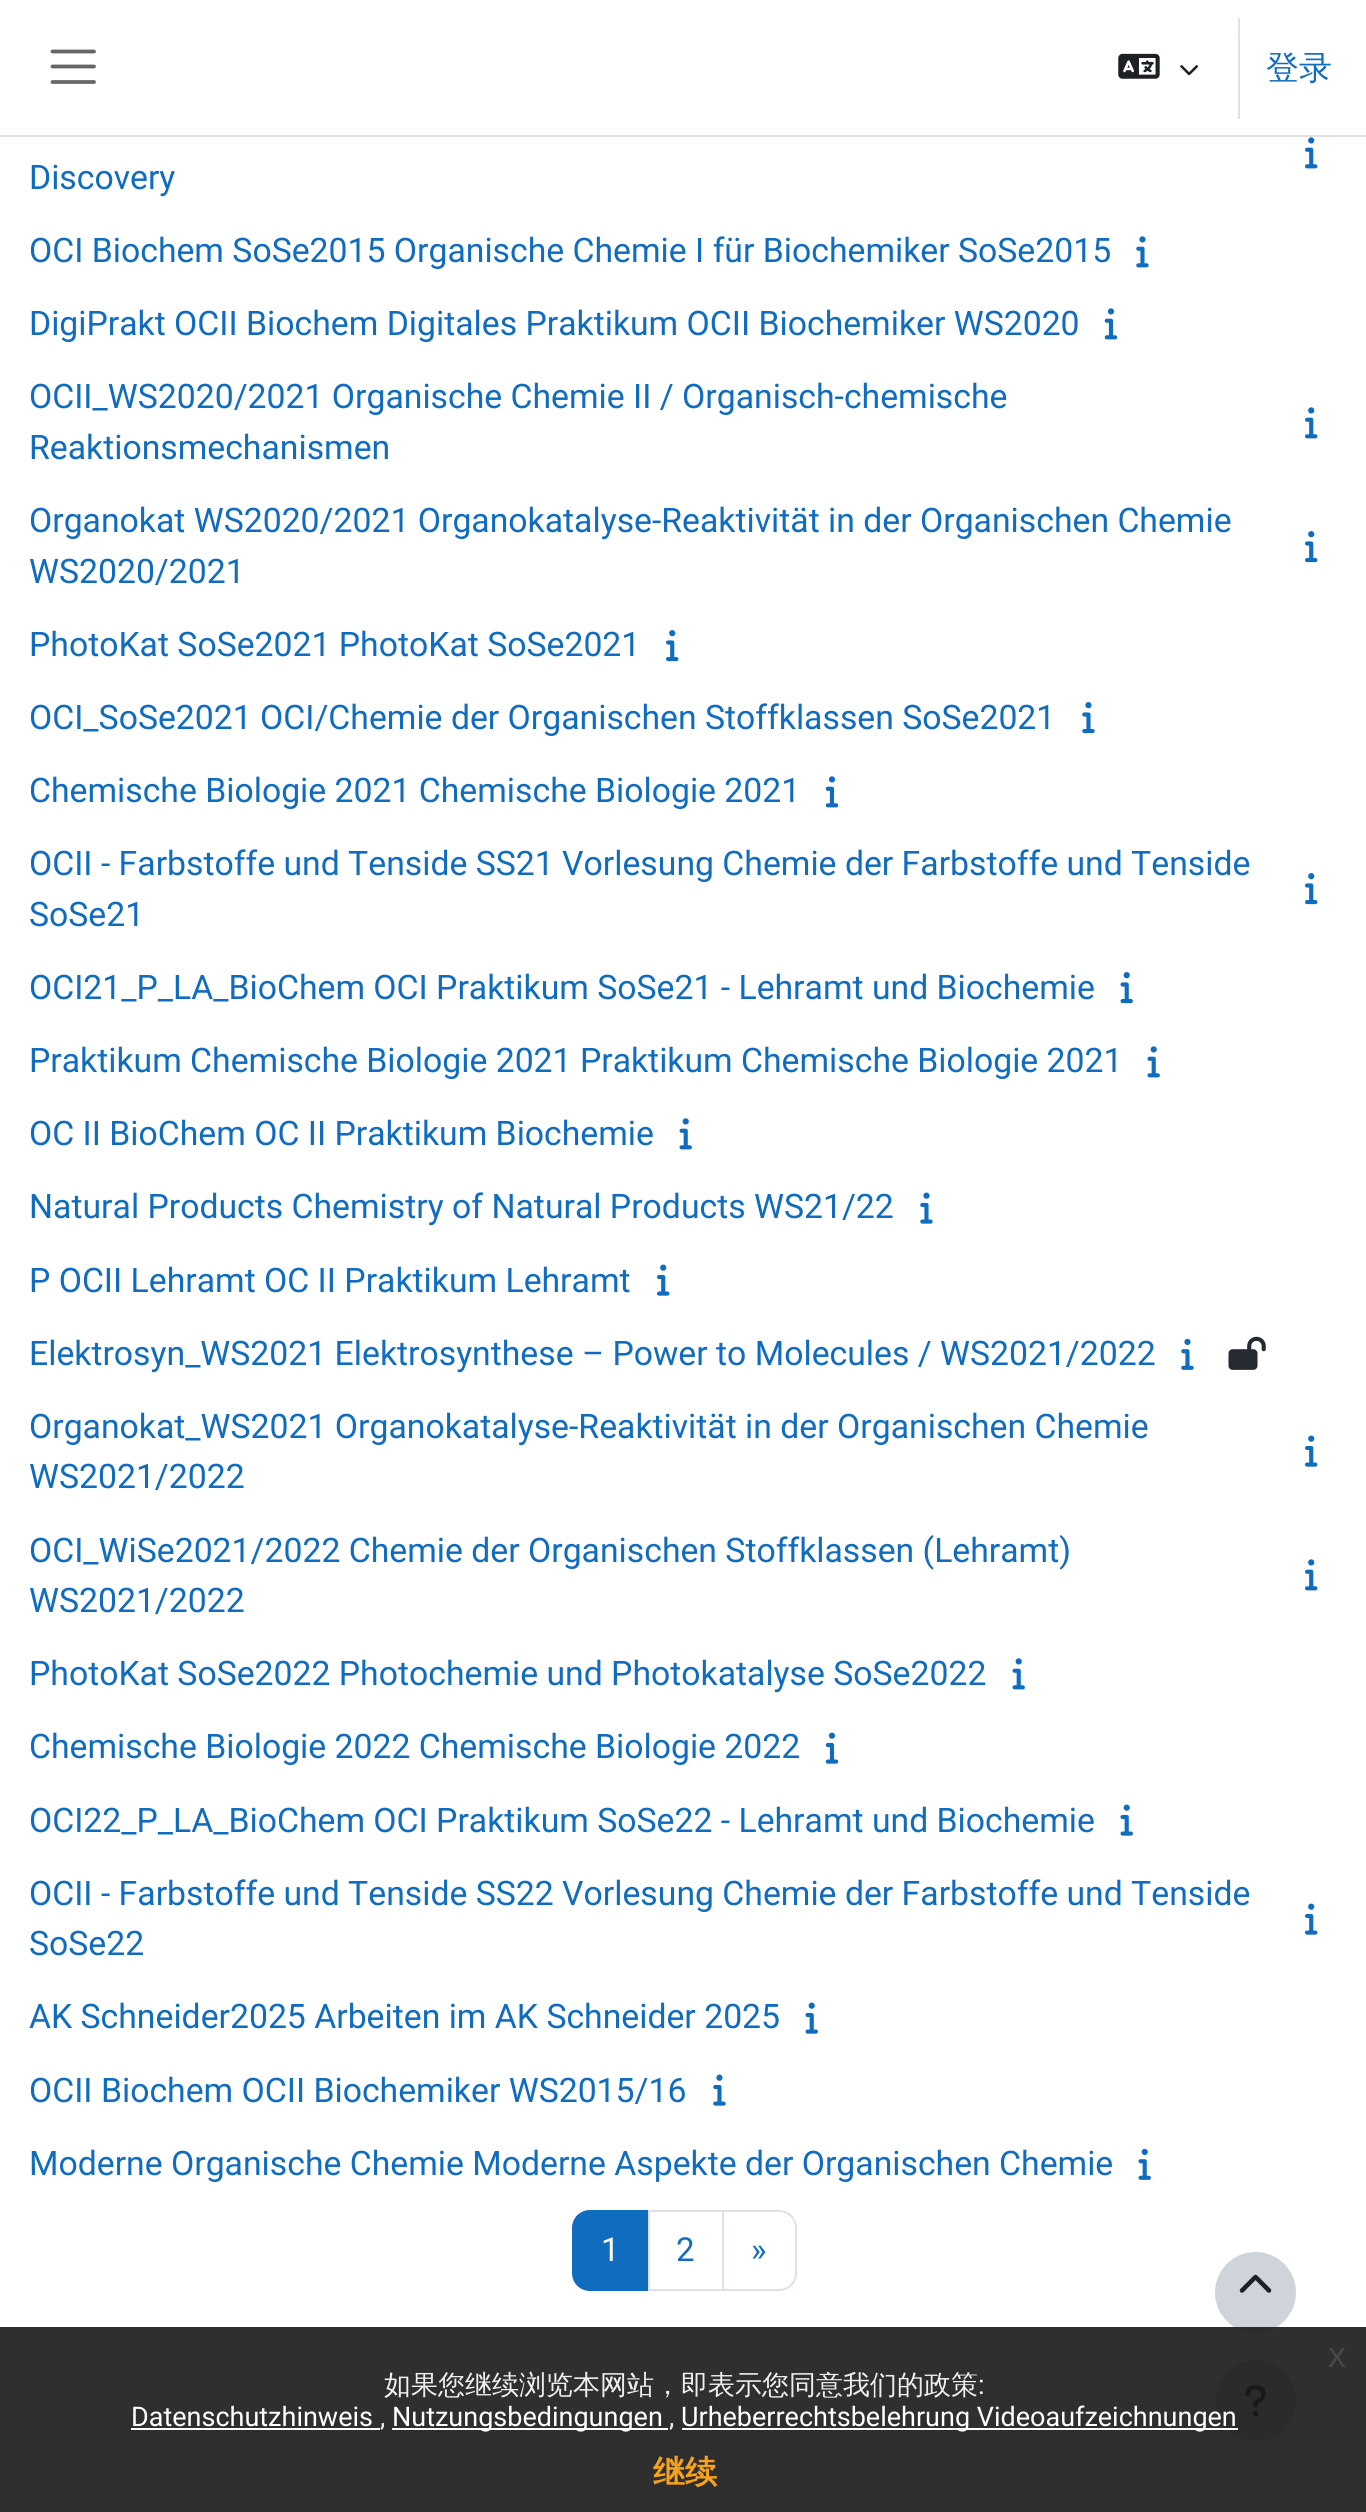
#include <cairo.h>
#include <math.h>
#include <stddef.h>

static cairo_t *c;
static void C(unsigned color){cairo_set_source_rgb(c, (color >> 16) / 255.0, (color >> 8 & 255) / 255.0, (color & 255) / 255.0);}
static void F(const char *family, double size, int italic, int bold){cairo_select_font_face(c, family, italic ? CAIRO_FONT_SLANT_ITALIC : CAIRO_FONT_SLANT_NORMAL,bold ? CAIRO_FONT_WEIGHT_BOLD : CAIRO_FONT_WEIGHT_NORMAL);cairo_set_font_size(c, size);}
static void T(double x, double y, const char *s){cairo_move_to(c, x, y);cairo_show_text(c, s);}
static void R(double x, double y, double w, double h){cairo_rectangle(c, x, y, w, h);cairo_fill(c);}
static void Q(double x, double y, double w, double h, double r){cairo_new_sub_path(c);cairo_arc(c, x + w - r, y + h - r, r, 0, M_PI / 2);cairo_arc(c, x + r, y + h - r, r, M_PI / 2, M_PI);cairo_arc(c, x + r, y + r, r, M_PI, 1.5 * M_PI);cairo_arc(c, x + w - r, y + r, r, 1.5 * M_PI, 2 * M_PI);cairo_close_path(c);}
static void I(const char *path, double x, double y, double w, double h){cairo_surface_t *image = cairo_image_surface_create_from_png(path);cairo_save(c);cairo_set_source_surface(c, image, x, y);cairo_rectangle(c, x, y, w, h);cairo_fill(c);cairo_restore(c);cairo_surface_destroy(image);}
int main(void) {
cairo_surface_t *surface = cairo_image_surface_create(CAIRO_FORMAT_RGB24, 1366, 2512);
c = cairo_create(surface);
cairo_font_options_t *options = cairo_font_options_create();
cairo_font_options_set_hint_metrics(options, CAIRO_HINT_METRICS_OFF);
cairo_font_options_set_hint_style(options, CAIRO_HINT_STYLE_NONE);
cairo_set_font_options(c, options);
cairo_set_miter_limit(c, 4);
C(0xf0f0f0);
cairo_paint(c);
C(0xffffff);
Q(0,-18,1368,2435,18);
cairo_fill(c);
C(0xdee2e6);
R(0,135,1366,2);
cairo_new_path(c);
cairo_move_to(c,52.5,51.5);
cairo_line_to(c,94,51.5);
cairo_move_to(c,52.5,66.5);
cairo_line_to(c,94,66.5);
cairo_move_to(c,52.5,82);
cairo_line_to(c,94,82);
C(0x666666);
cairo_set_line_width(c,3.8);
cairo_set_line_cap(c,CAIRO_LINE_CAP_ROUND);
cairo_stroke(c);
I("1.png",1118,53,42,26);
I("2.png",1180,65,18,11);
C(0xdee2e6);
R(1238,18,2,101);
F("WenQuanYi Zen Hei Medium",33,0,0);
C(0x0f6cbf);
T(1266,79,"登录");
I("3.png",1305,137,13,32);
F("Roboto",33.75,0,0);
T(29,189,"Discovery");
T(29,262,"OCI Biochem SoSe2015 Organische Chemie I für Biochemiker SoSe2015");
I("4.png",1136,236,13,32);
T(29,335,"DigiPrakt OCII Biochem Digitales Praktikum OCII Biochemiker WS2020");
I("5.png",1104,308,14,32);
T(29,408,"OCII_WS2020/2021 Organische Chemie II / Organisch-chemische");
T(29,459,"Reaktionsmechanismen");
I("3.png",1305,407,13,32);
T(29,532,"Organokat WS2020/2021 Organokatalyse-Reaktivität in der Organischen Chemie");
T(29,583,"WS2020/2021");
I("6.png",1305,531,13,32);
T(29,656,"PhotoKat SoSe2021 PhotoKat SoSe2021");
I("6.png",666,630,13,32);
T(29,729,"OCI_SoSe2021 OCI/Chemie der Organischen Stoffklassen SoSe2021");
I("7.png",1082,702,13,32);
T(29,802,"Chemische Biologie 2021 Chemische Biologie 2021");
I("5.png",825,776,14,32);
T(29,875,"OCII - Farbstoffe und Tenside SS21 Vorlesung Chemie der Farbstoffe und Tenside");
T(29,926,"SoSe21");
I("6.png",1305,873,13,32);
T(29,999,"OCI21_P_LA_BioChem OCI Praktikum SoSe21 - Lehramt und Biochemie");
I("8.png",1120,972,13,32);
T(29,1072,"Praktikum Chemische Biologie 2021 Praktikum Chemische Biologie 2021");
I("9.png",1147,1046,13,32);
T(29,1145,"OC II BioChem OC II Praktikum Biochemie");
I("9.png",679,1118,13,32);
T(29,1218,"Natural Products Chemistry of Natural Products WS21/22");
I("10.png",920,1192,13,32);
T(29,1292,"P OCII Lehramt OC II Praktikum Lehramt");
I("11.png",657,1264,13,32);
T(29,1365,"Elektrosyn_WS2021 Elektrosynthese – Power to Molecules / WS2021/2022");
I("12.png",1181,1338,13,32);
I("13.png",1228,1336,38,34);
T(29,1438,"Organokat_WS2021 Organokatalyse-Reaktivität in der Organischen Chemie");
T(29,1488,"WS2021/2022");
I("11.png",1305,1435,13,32);
T(29,1562,"OCI_WiSe2021/2022 Chemie der Organischen Stoffklassen (Lehramt)");
T(29,1612,"WS2021/2022");
I("3.png",1305,1559,13,32);
T(29,1685,"PhotoKat SoSe2022 Photochemie und Photokatalyse SoSe2022");
I("9.png",1012,1658,13,32);
T(29,1758,"Chemische Biologie 2022 Chemische Biologie 2022");
I("14.png",825,1732,14,32);
T(29,1832,"OCI22_P_LA_BioChem OCI Praktikum SoSe22 - Lehramt und Biochemie");
I("15.png",1120,1804,13,32);
T(29,1905,"OCII - Farbstoffe und Tenside SS22 Vorlesung Chemie der Farbstoffe und Tenside");
T(29,1955,"SoSe22");
I("11.png",1305,1903,13,32);
T(29,2028,"AK Schneider2025 Arbeiten im AK Schneider 2025");
I("15.png",805,2002,13,32);
T(29,2102,"OCII Biochem OCII Biochemiker WS2015/16");
I("10.png",713,2074,13,32);
T(29,2175,"Moderne Organische Chemie Moderne Aspekte der Organischen Chemie");
I("16.png",1138,2148,13,32);
cairo_new_path(c);
cairo_move_to(c,590,2211);
cairo_line_to(c,649,2211);
cairo_line_to(c,649,2290);
cairo_line_to(c,590,2290);
cairo_curve_to(c,580.5,2290,573,2282.5,573,2273);
cairo_line_to(c,573,2228);
cairo_curve_to(c,573,2218.5,580.5,2211,590,2211);
cairo_close_path(c);
cairo_fill_preserve(c);
cairo_set_line_width(c,2);
cairo_set_line_cap(c,CAIRO_LINE_CAP_BUTT);
cairo_stroke(c);
F("Roboto",33,0,0);
C(0xffffff);
T(601,2261,"1");
cairo_rectangle(c,649,2211,75,79);
C(0xdee2e6);
cairo_stroke(c);
C(0x0f6cbf);
T(676,2261,"2");
C(0xffffff);
cairo_new_path(c);
cairo_move_to(c,723,2211);
cairo_line_to(c,779,2211);
cairo_curve_to(c,788.5,2211,796,2218.5,796,2228);
cairo_line_to(c,796,2273);
cairo_curve_to(c,796,2282.5,788.5,2290,779,2290);
cairo_line_to(c,723,2290);
cairo_close_path(c);
cairo_fill_preserve(c);
C(0xdee2e6);
cairo_stroke(c);
C(0x0f6cbf);
T(751,2261,"»");
C(0xced4da);
cairo_new_path(c);
cairo_arc(c,1255.5,2292.5,40.5,0,2 * M_PI);
cairo_fill(c);
I("17.png",1239,2274,33,19);
cairo_arc(c,1255.5,2400.5,40.5,0,2 * M_PI);
cairo_fill(c);
I("18.png",1245,2385,21,32);
cairo_set_source_rgba(c,0.098,0.098,0.098,0.9);
R(0,2327,1366,185);
F("Liberation Sans",36,0,0);
C(0x474747);
T(1328,2367,"x");
F("WenQuanYi Zen Hei Medium",27,0,0);
C(0xefefef);
T(384,2394,"如果您继续浏览本网站，即表示您同意我们的政策");
F("Roboto",27,0,0);
T(978,2394,":");
C(0xffffff);
T(131,2426,"Datenschutzhinweis");
R(131,2428,249,2);
C(0xefefef);
T(380,2426,",");
C(0xffffff);
R(392,2428,276,2);
T(392,2426,"Nutzungsbedingungen");
C(0xefefef);
T(669,2426,",");
C(0xffffff);
R(682,2428,556,2);
T(681,2426,"Urheberrechtsbelehrung Videoaufzeichnungen");
F("WenQuanYi Zen Hei",32,0,1);
C(0xf6a21d);
T(653,2483,"继续");
cairo_surface_write_to_png(surface, "o.png");
cairo_font_options_destroy(options);
cairo_destroy(c);
cairo_surface_destroy(surface);
return 0;
}
